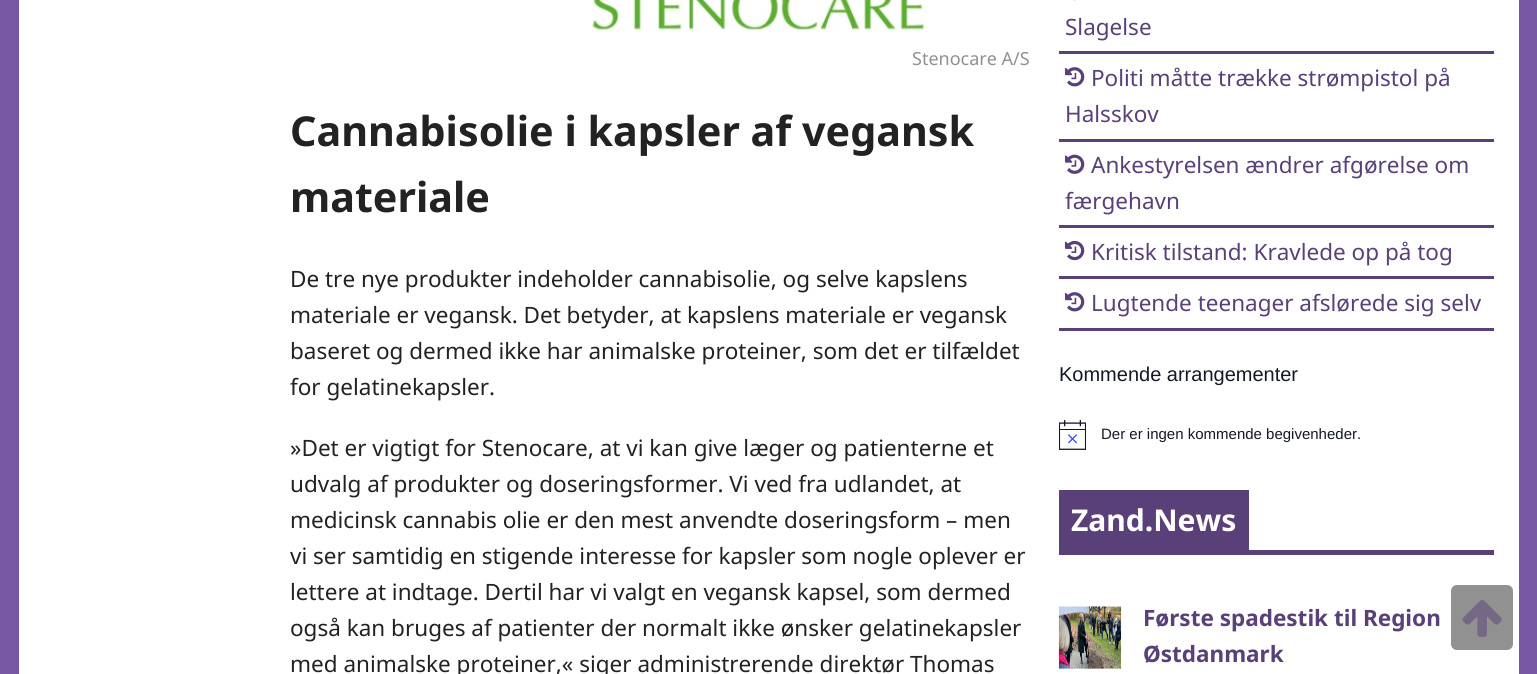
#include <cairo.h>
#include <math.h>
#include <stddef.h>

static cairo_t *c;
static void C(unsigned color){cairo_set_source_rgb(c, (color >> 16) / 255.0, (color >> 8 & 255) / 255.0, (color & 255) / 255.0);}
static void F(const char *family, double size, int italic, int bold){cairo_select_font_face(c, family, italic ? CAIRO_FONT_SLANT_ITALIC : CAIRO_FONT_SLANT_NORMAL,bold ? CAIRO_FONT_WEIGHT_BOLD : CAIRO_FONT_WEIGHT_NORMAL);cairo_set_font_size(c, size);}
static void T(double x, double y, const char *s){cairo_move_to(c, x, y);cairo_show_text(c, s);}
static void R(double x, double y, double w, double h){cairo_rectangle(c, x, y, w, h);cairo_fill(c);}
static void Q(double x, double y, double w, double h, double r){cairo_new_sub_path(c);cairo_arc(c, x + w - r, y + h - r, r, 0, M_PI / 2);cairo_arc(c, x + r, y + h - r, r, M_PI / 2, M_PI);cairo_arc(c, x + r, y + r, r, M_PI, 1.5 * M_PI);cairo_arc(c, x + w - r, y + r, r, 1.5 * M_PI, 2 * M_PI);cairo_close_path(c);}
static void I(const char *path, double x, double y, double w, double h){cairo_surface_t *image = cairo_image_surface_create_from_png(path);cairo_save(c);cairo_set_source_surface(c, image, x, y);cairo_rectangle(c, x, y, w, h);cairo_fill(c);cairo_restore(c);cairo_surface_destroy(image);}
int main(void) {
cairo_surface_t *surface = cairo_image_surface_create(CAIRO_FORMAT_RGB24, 1537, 674);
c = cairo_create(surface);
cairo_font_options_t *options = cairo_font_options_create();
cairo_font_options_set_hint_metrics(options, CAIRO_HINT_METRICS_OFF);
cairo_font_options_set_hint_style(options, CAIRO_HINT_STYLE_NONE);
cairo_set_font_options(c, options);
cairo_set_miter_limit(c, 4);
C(0x7756a3);
cairo_paint(c);
C(0xffffff);
R(19,0,1500,674);
I("1.png",591,0,334,31);
F("Noto Sans",18,0,0);
C(0x909090);
T(912,65,"Stenocare A/S");
F("Noto Sans",41.25,0,1);
C(0x222222);
T(290,146,"Cannabisolie i kapsler af vegansk");
T(290,212,"materiale");
F("Noto Sans",22.5,0,0);
T(290,287,"De tre nye produkter indeholder cannabisolie, og selve kapslens");
T(290,323,"materiale er vegansk. Det betyder, at kapslens materiale er vegansk");
T(290,359,"baseret og dermed ikke har animalske proteiner, som det er tilfældet");
T(290,395,"for gelatinekapsler.");
T(290,456,"»Det er vigtigt for Stenocare, at vi kan give læger og patienterne et");
T(290,492,"udvalg af produkter og doseringsformer. Vi ved fra udlandet, at");
T(290,528,"medicinsk cannabis olie er den mest anvendte doseringsform – men");
T(290,564,"vi ser samtidig en stigende interesse for kapsler som nogle oplever er");
T(290,600,"lettere at indtage. Dertil har vi valgt en vegansk kapsel, som dermed");
T(290,636,"også kan bruges af patienter der normalt ikke ønsker gelatinekapsler");
T(290,672,"med animalske proteiner,« siger administrerende direktør Thomas");
C(0x594079);
R(1059,51,435,3);
I("2.png",1073,0,3,1);
T(1065,35,"Slagelse");
R(1059,139,435,3);
I("3.png",1065,67,20,20);
T(1091,86,"Politi måtte trække strømpistol på");
T(1065,122,"Halsskov");
R(1059,225,435,3);
I("4.png",1065,154,20,20);
T(1091,173,"Ankestyrelsen ændrer afgørelse om");
T(1065,209,"færgehavn");
R(1059,276,435,3);
I("5.png",1065,240,20,21);
T(1091,260,"Kritisk tilstand: Kravlede op på tog");
R(1059,328,435,3);
I("3.png",1065,292,20,20);
T(1091,311,"Lugtende teenager afslørede sig selv");
F("Liberation Sans",20,0,0);
C(0x141827);
T(1059,381,"Kommende arrangementer");
I("6.png",1059,420,27,30);
F("Liberation Sans",15,0,0);
T(1101,439,"Der er ingen kommende begivenheder.");
C(0x594079);
R(1059,550,435,5);
R(1059,490,190,60);
F("Noto Sans",30,0,1);
C(0xffffff);
T(1071,531,"Zand.News");
I("7.png",1058,606,64,63);
F("Noto Sans",22.5,0,1);
C(0x594079);
T(1143,626,"Første spadestik til Region");
T(1143,662,"Østdanmark");
C(0x919191);
Q(1451,585,62,65,6);
cairo_fill(c);
I("8.png",1462,600,40,37);
cairo_surface_write_to_png(surface, "o.png");
cairo_font_options_destroy(options);
cairo_destroy(c);
cairo_surface_destroy(surface);
return 0;
}
